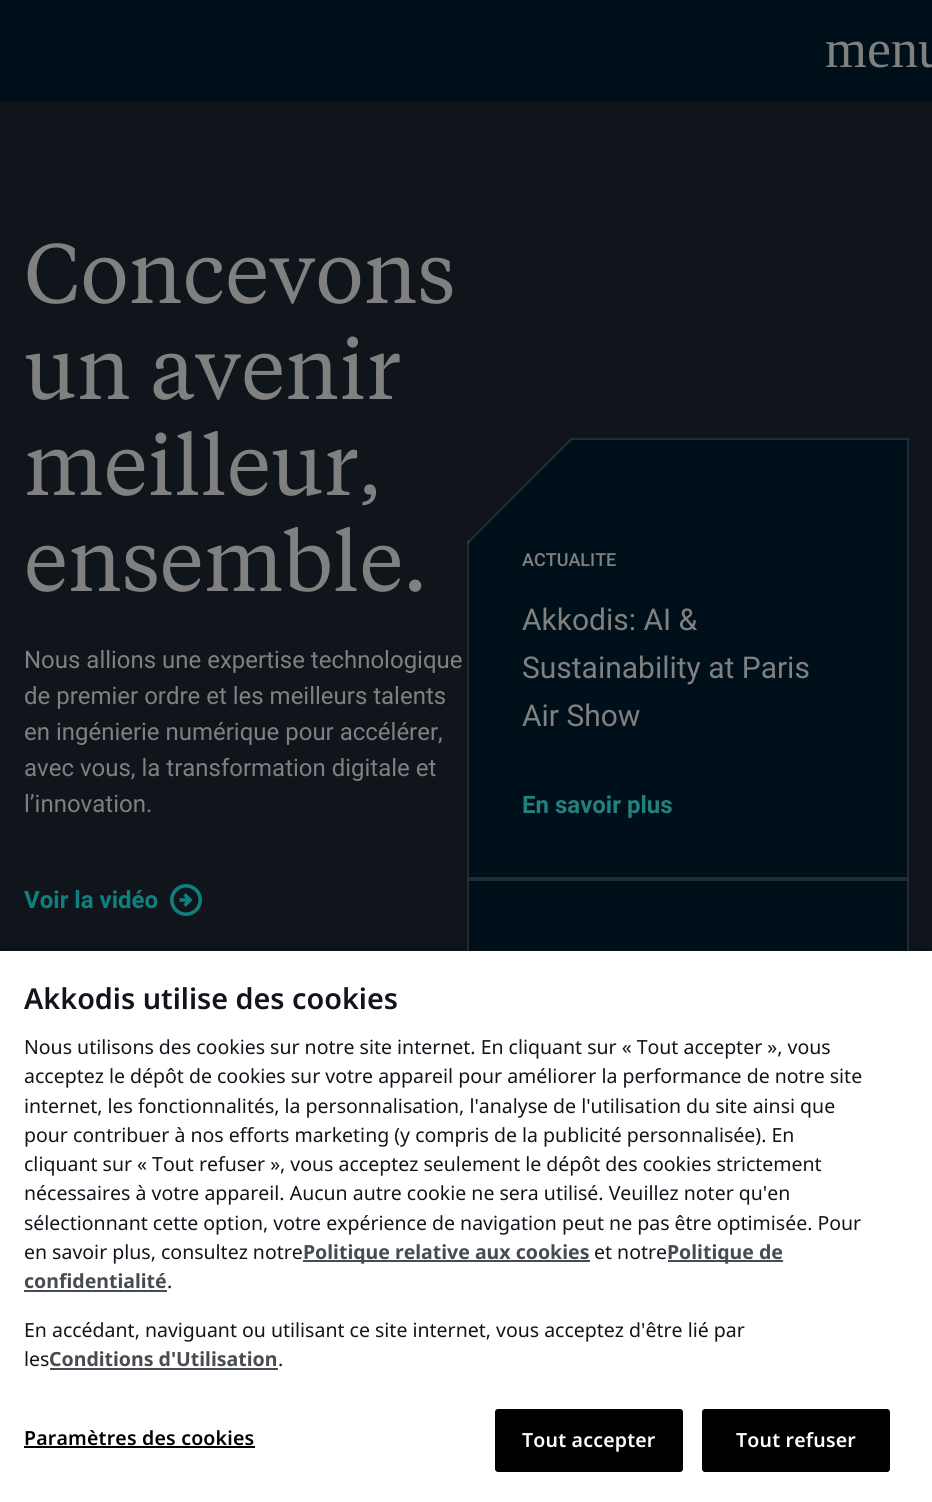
#include <cairo.h>
#include <math.h>
#include <stddef.h>

static cairo_t *c;
static void C(unsigned color){cairo_set_source_rgb(c, (color >> 16) / 255.0, (color >> 8 & 255) / 255.0, (color & 255) / 255.0);}
static void F(const char *family, double size, int italic, int bold){cairo_select_font_face(c, family, italic ? CAIRO_FONT_SLANT_ITALIC : CAIRO_FONT_SLANT_NORMAL,bold ? CAIRO_FONT_WEIGHT_BOLD : CAIRO_FONT_WEIGHT_NORMAL);cairo_set_font_size(c, size);}
static void T(double x, double y, const char *s){cairo_move_to(c, x, y);cairo_show_text(c, s);}
static void L(double x, double y, const char *s, double letter, double word){cairo_move_to(c, x, y);while (*s) {char ch[5] = {0};int n = 0;do ch[n++] = *s++; while ((*s & 0xC0) == 0x80);cairo_show_text(c, ch);cairo_rel_move_to(c, letter + word * (*ch == ' '), 0);}}
static void R(double x, double y, double w, double h){cairo_rectangle(c, x, y, w, h);cairo_fill(c);}
static void Q(double x, double y, double w, double h, double r){cairo_new_sub_path(c);cairo_arc(c, x + w - r, y + h - r, r, 0, M_PI / 2);cairo_arc(c, x + r, y + h - r, r, M_PI / 2, M_PI);cairo_arc(c, x + r, y + r, r, M_PI, 1.5 * M_PI);cairo_arc(c, x + w - r, y + r, r, 1.5 * M_PI, 2 * M_PI);cairo_close_path(c);}
static void S(double x, double y, double w, double h, double r, double blur, double alpha){cairo_push_group_with_content(c, CAIRO_CONTENT_ALPHA);cairo_set_operator(c, CAIRO_OPERATOR_SOURCE);for (int i = 15; i >= -15 && fmin(w, h) + blur * i / 3 > 0; i -= 2) {double e = blur * i / 6;cairo_set_source_rgba(c, 0, 0, 0, alpha * erfc((i - 1) / 8.5) / 2);Q(x - e, y - e, w + 2 * e, h + 2 * e, fmax(0, fmin(r + e + blur * .6, fmin(w, h) / 2 + e)));cairo_fill(c);}cairo_pattern_t *soft = cairo_pop_group(c);cairo_mask(c, soft);cairo_pattern_destroy(soft);}
static void I(const char *path, double x, double y, double w, double h){cairo_surface_t *image = cairo_image_surface_create_from_png(path);cairo_save(c);cairo_set_source_surface(c, image, x, y);cairo_rectangle(c, x, y, w, h);cairo_fill(c);cairo_restore(c);cairo_surface_destroy(image);}
int main(void) {
cairo_surface_t *surface = cairo_image_surface_create(CAIRO_FORMAT_RGB24, 932, 1502);
c = cairo_create(surface);
cairo_font_options_t *options = cairo_font_options_create();
cairo_font_options_set_hint_metrics(options, CAIRO_HINT_METRICS_OFF);
cairo_font_options_set_hint_style(options, CAIRO_HINT_STYLE_NONE);
cairo_set_font_options(c, options);
cairo_set_miter_limit(c, 4);
C(0x0f151b);
cairo_paint(c);
C(0x00101a);
R(0,0,932,102);
F("Liberation Serif",54,0,0);
C(0x808080);
T(825,67,"menu");
F("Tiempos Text",84,0,0);
T(24,303,"Concevons");
T(24,399,"un avenir");
T(24,495,"meilleur,");
T(24,591,"ensemble.");
F("Roboto",24,0,0);
T(24,668,"Nous allions une expertise technologique");
T(24,704,"de premier ordre et les meilleurs talents");
T(24,740,"en ingénierie numérique pour accélérer,");
T(24,776,"avec vous, la transformation digitale et");
T(24,812,"l’innovation.");
F("Roboto",24,0,1);
C(0x0f8080);
T(24,908,"Voir la vidéo");
I("1.png",170,884,32,32);
C(0x00101a);
cairo_new_path(c);
cairo_move_to(c,572,438);
cairo_line_to(c,467,542);
cairo_line_to(c,467,879);
cairo_line_to(c,909,879);
cairo_line_to(c,909,438);
cairo_close_path(c);
cairo_fill(c);
cairo_set_source_rgba(c,0.502,0.502,0.502,0.25);
cairo_new_path(c);
cairo_move_to(c,572,438);
cairo_line_to(c,570,440);
cairo_line_to(c,907,440);
cairo_line_to(c,907,877);
cairo_line_to(c,469,877);
cairo_line_to(c,469,540);
cairo_line_to(c,467,542);
cairo_line_to(c,467,879);
cairo_line_to(c,909,879);
cairo_line_to(c,909,438);
cairo_close_path(c);
cairo_fill(c);
cairo_new_path(c);
cairo_move_to(c,572,440);
cairo_line_to(c,571,438);
cairo_line_to(c,467,542);
cairo_line_to(c,468,544);
cairo_close_path(c);
cairo_fill(c);
F("Roboto Medium",18,0,0);
C(0x808080);
T(522,566,"ACTUALITE");
F("Roboto",30,0,0);
T(522,630,"Akkodis: AI &");
T(522,678,"Sustainability at Paris");
T(522,726,"Air Show");
F("Roboto",24,0,1);
C(0x248080);
T(522,813,"En savoir plus");
C(0x00101a);
R(469,881,438,70);
cairo_rectangle(c,468,880,440,439);
C(0x202c33);
cairo_stroke(c);
C(0x000000);
S(0,951,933,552,0,13.5,.2);
C(0xffffff);
R(0,951,932,551);
F("Noto Sans SemiBold",28.75,0,0);
C(0x11151b);
T(24,1009,"Akkodis utilise des cookies");
F("Noto Sans",19.5,0,0);
T(24,1054,"Nous utilisons des cookies sur notre site internet. En cliquant sur « Tout accepter », vous");
T(24,1083,"acceptez le dépôt de cookies sur votre appareil pour améliorer la performance de notre site");
T(24,1113,"internet, les fonctionnalités, la personnalisation, l'analyse de l'utilisation du site ainsi que");
T(24,1142,"pour contribuer à nos efforts marketing (y compris de la publicité personnalisée). En");
T(24,1171,"cliquant sur « Tout refuser », vous acceptez seulement le dépôt des cookies strictement");
T(24,1200,"nécessaires à votre appareil. Aucun autre cookie ne sera utilisé. Veuillez noter qu'en");
T(24,1230,"sélectionnant cette option, votre expérience de navigation peut ne pas être optimisée. Pour");
T(24,1259,"en savoir plus, consultez notre");
C(0x464c51);
R(303,1260,287,2);
F("Noto Sans",19.5,0,1);
T(303,1259,"Politique relative aux cookies");
F("Noto Sans",19.5,0,0);
C(0x11151b);
T(594,1259,"et notre");
C(0x464c51);
R(668,1260,115,2);
F("Noto Sans",19.5,0,1);
T(667,1259,"Politique de");
T(24,1288,"confidentialité");
R(24,1290,143,2);
F("Noto Sans",19.5,0,0);
C(0x11151b);
T(167,1288,".");
T(24,1337,"En accédant, naviguant ou utilisant ce site internet, vous acceptez d'être lié par");
T(24,1366,"les");
F("Noto Sans",19.5,0,1);
C(0x464c51);
T(49,1366,"Conditions d'Utilisation");
R(50,1368,228,2);
F("Noto Sans",19.5,0,0);
C(0x11151b);
T(278,1366,".");
F("Noto Sans SemiBold",19.5,0,0);
C(0x000000);
L(24,1445,"Paramètres des cookies",.2,0);
R(24,1446,231,2);
Q(496,1410,186,61,2);
cairo_fill_preserve(c);
cairo_stroke(c);
C(0xffffff);
L(522,1447,"Tout accepter",.2,0);
C(0x000000);
Q(703,1410,186,61,2);
cairo_fill_preserve(c);
cairo_stroke(c);
C(0xffffff);
L(736,1447,"Tout refuser",.2,0);
cairo_surface_write_to_png(surface, "o.png");
cairo_font_options_destroy(options);
cairo_destroy(c);
cairo_surface_destroy(surface);
return 0;
}
